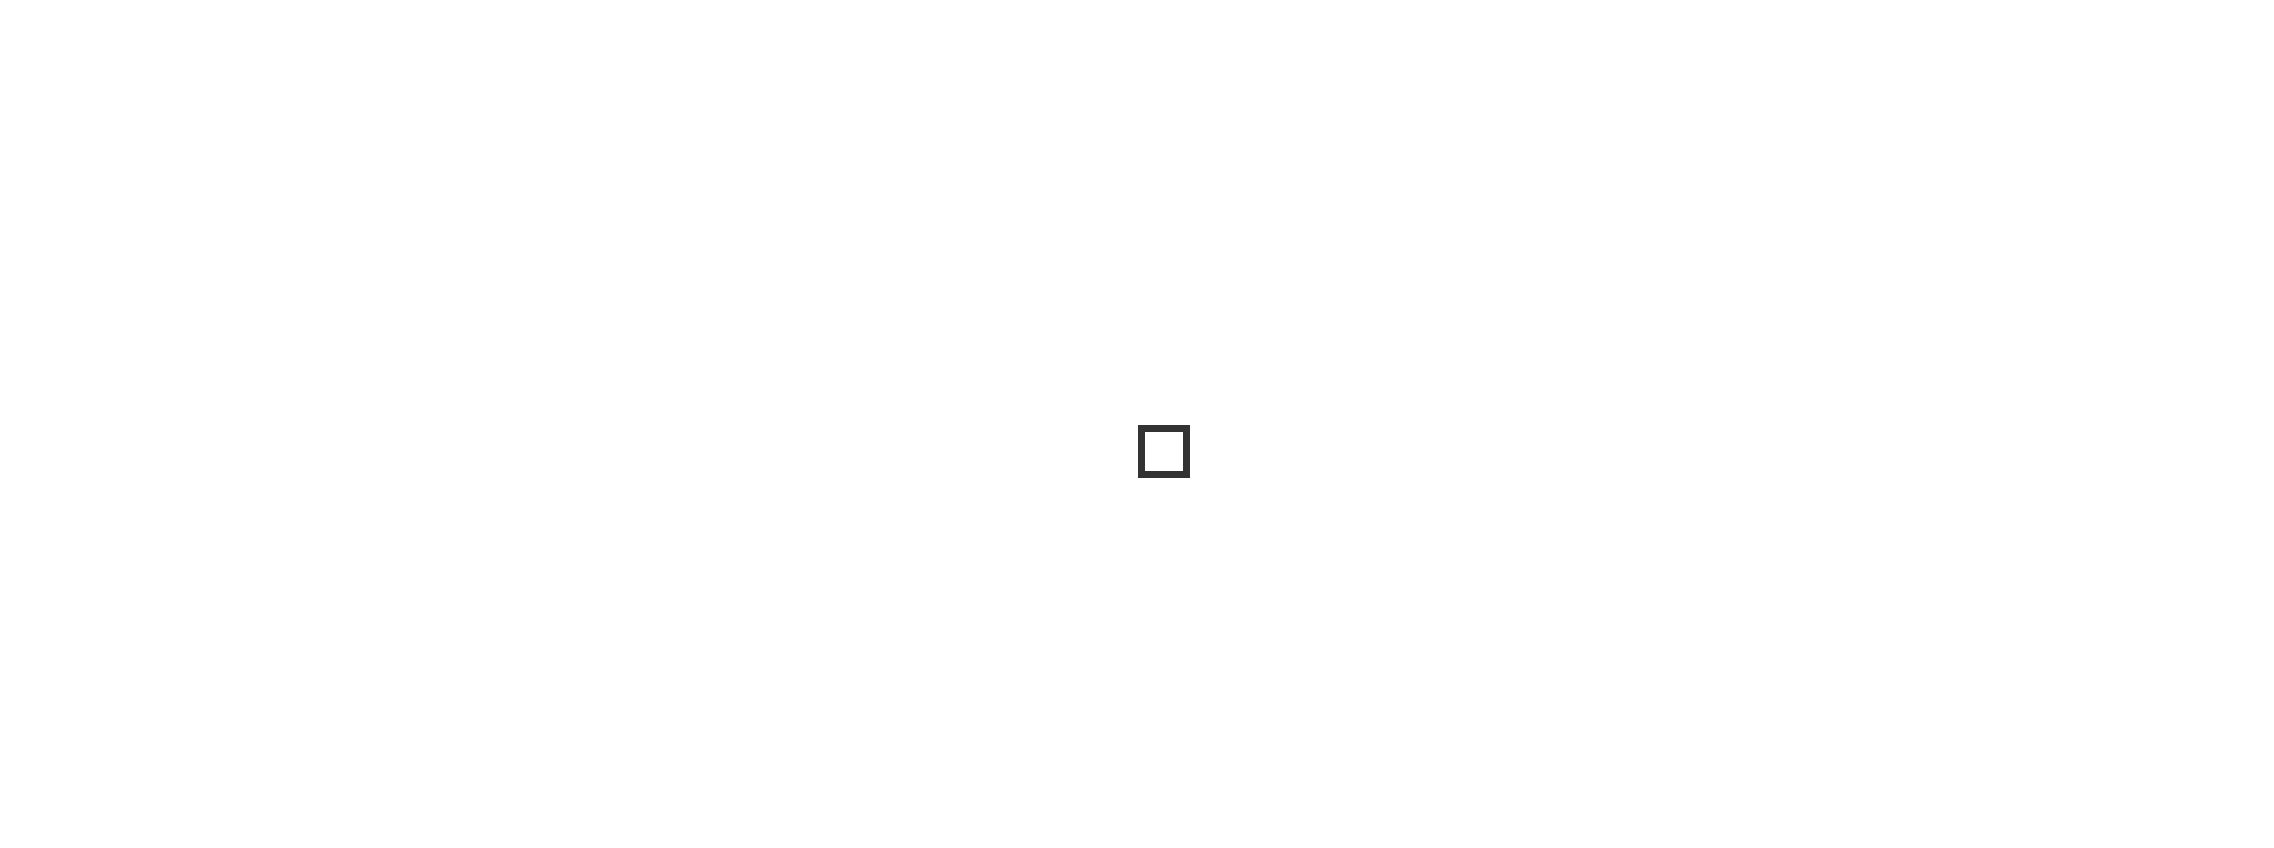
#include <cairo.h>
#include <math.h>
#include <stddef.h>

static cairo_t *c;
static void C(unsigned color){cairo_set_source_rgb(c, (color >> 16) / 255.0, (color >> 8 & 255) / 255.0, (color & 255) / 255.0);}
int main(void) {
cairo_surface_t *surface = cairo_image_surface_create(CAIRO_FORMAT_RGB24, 2274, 848);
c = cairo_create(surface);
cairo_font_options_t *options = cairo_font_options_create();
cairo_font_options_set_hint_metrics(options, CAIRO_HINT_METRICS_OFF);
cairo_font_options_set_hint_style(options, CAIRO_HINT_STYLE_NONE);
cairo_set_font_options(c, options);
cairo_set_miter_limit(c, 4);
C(0xffffff);
cairo_paint(c);
cairo_rectangle(c,1141.5,428.5,45,46);
C(0x333333);
cairo_set_line_width(c,7);
cairo_stroke(c);
cairo_surface_write_to_png(surface, "o.png");
cairo_font_options_destroy(options);
cairo_destroy(c);
cairo_surface_destroy(surface);
return 0;
}
